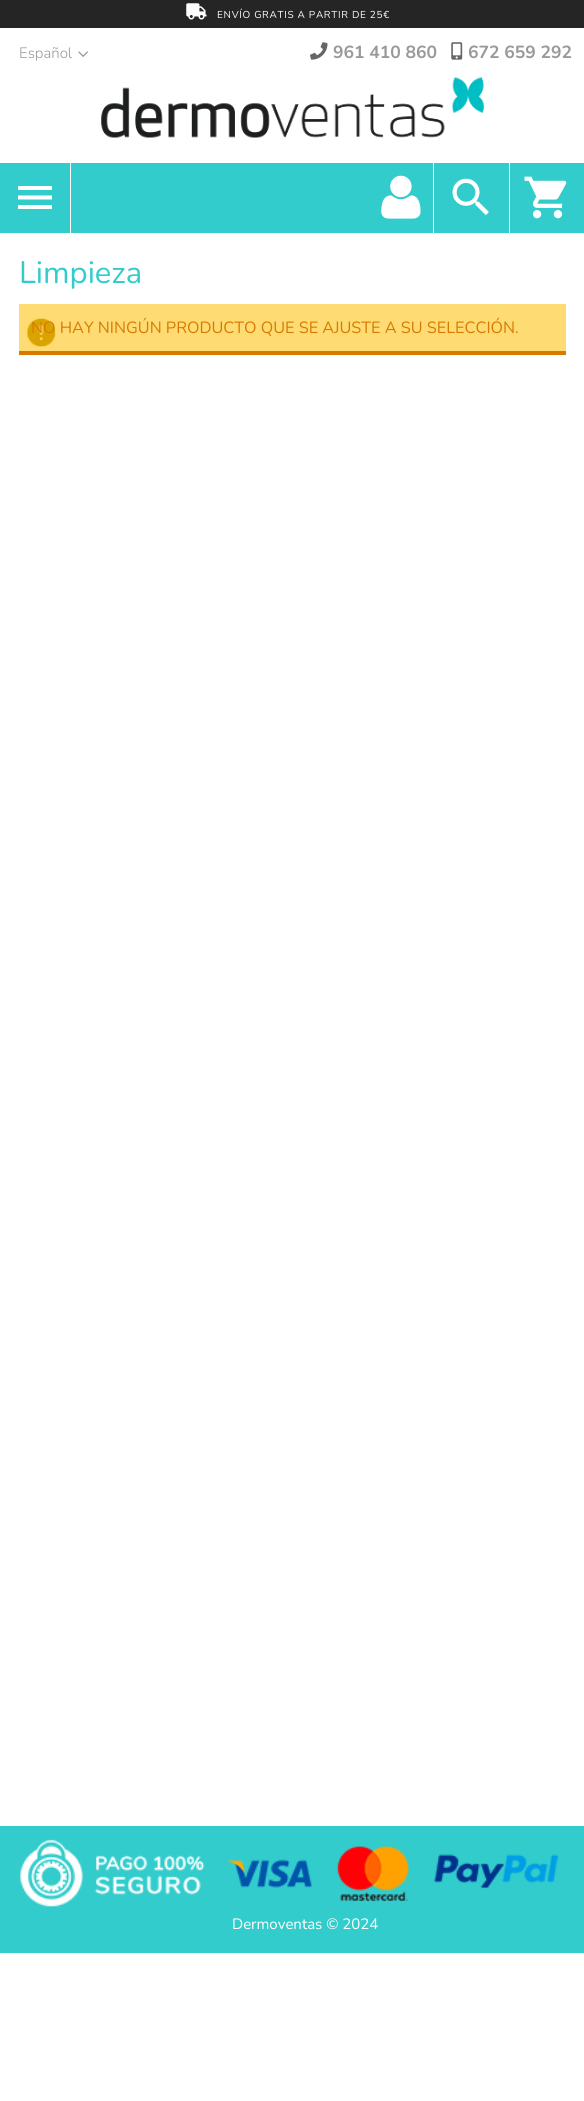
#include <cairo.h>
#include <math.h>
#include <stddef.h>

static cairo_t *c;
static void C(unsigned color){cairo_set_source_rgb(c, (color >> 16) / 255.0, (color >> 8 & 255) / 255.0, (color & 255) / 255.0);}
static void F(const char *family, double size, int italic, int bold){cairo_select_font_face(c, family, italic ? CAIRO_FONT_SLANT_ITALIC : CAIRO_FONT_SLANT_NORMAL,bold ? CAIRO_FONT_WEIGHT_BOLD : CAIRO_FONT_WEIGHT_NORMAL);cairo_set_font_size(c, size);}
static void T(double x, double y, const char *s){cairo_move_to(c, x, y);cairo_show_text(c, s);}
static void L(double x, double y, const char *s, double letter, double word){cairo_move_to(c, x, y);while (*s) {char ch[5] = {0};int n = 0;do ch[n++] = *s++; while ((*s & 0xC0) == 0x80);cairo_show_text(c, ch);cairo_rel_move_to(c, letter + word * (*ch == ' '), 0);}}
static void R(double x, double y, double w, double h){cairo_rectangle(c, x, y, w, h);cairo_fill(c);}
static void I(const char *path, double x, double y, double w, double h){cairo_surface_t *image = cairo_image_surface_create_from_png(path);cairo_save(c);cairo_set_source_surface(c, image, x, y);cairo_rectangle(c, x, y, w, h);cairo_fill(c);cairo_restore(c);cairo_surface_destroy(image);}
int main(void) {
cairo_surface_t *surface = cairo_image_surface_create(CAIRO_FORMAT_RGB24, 584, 2101);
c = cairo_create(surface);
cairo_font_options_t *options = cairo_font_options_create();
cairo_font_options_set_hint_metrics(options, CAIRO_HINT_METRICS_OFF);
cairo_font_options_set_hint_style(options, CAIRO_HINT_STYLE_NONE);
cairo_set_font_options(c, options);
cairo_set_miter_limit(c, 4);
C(0xffffff);
cairo_paint(c);
C(0x252525);
R(0,0,584,28);
I("1.png",186,3,21,17);
F("Nunito",10,0,0);
C(0xfefefe);
L(217,18,"ENVÍO GRATIS A PARTIR DE 25€",.7,0);
F("Nunito Light",15,0,0);
C(0x999999);
T(19,58,"Español");
I("2.png",78,51,10,6);
I("3.png",310,42,18,18);
F("Nunito",17.5,0,1);
T(333,58,"961 410 860");
I("4.png",451,42,12,18);
T(468,58,"672 659 292");
I("5.png",101,77,383,61);
C(0x33cccc);
R(0,163,584,70);
C(0xffffff);
R(70,163,1,70);
cairo_new_path(c);
cairo_move_to(c,18,186);
cairo_line_to(c,52,186);
cairo_line_to(c,52,190);
cairo_line_to(c,18,190);
cairo_close_path(c);
cairo_move_to(c,18,199.5);
cairo_line_to(c,18,195.5);
cairo_line_to(c,52,195.5);
cairo_line_to(c,52,199.5);
cairo_close_path(c);
cairo_move_to(c,18,209);
cairo_line_to(c,18,205);
cairo_line_to(c,52,205);
cairo_line_to(c,52,209);
cairo_close_path(c);
cairo_fill(c);
I("6.png",381,175,40,44);
R(509,163,1,70);
R(433,163,1,70);
I("7.png",452,178,37,38);
I("8.png",524,176,43,43);
F("Nunito",31,0,0);
C(0x33cccc);
T(19,283,"Limpieza");
C(0xffdc73);
R(19,304,547,47);
I("9.png",27,318,29,29);
C(0xd97a00);
R(19,351,547,4);
F("Nunito",16.25,0,0);
T(31,333,"NO HAY NINGÚN PRODUCTO QUE SE AJUSTE A SU SELECCIÓN.");
C(0x33cccc);
R(0,1826,584,127);
I("10.png",20,1839,539,68);
F("Nunito",15,0,0);
C(0xfefefe);
T(232,1929,"Dermoventas © 2024");
cairo_surface_write_to_png(surface, "o.png");
cairo_font_options_destroy(options);
cairo_destroy(c);
cairo_surface_destroy(surface);
return 0;
}
